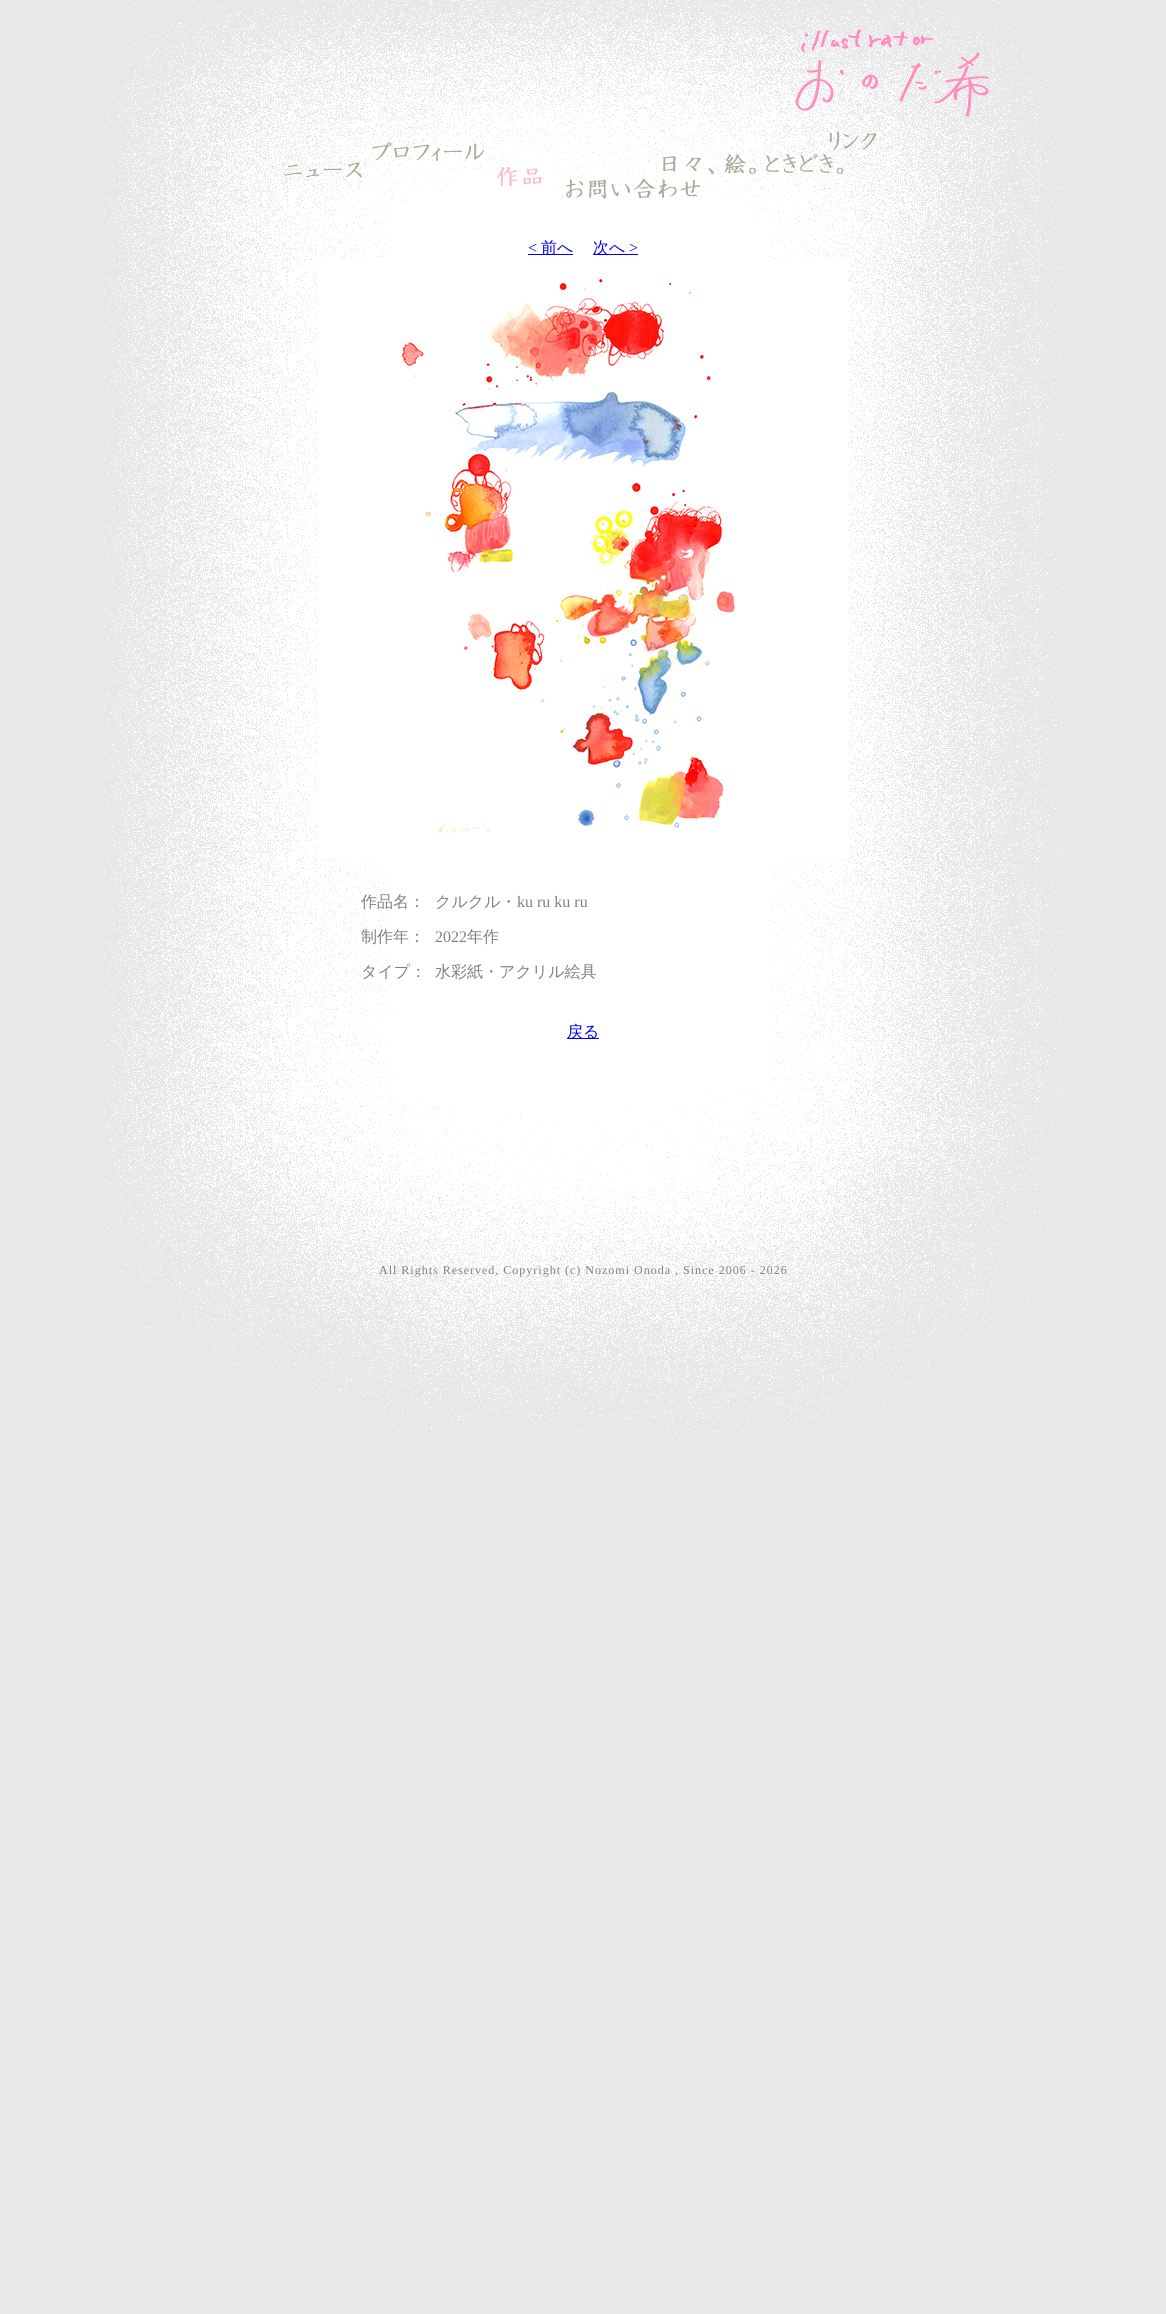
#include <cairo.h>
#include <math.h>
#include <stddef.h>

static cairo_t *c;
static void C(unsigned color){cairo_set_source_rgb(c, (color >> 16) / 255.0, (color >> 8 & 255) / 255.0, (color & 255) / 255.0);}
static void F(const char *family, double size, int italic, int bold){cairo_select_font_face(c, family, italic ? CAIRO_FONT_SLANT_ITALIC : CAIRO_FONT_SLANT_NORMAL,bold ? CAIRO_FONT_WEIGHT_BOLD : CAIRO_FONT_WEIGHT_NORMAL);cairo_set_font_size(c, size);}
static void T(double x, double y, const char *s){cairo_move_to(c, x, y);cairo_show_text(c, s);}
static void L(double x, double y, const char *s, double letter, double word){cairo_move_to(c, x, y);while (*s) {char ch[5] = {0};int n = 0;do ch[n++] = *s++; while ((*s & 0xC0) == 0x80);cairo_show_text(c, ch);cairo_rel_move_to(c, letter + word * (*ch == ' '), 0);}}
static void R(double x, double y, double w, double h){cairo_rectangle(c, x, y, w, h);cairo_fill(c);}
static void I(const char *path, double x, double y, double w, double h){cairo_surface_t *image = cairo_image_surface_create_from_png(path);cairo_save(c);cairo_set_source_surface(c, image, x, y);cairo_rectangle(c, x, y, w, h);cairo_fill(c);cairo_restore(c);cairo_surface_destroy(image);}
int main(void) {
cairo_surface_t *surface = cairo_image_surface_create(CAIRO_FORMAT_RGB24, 1166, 2314);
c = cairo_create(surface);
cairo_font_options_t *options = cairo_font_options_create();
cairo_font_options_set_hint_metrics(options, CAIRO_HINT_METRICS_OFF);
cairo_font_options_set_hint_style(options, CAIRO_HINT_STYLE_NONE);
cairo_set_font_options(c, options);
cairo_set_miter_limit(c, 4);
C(0xe8e8e8);
cairo_paint(c);
C(0xffffff);
R(103,0,960,1435);
I("1.png",103,0,960,220);
I("2.png",795,29,194,88);
I("3.png",372,142,113,19);
I("4.png",829,131,48,20);
I("5.png",284,162,78,16);
I("6.png",497,167,45,20);
I("7.png",566,178,134,21);
I("8.png",662,154,182,20);
I("9.png",103,220,960,823);
F("Liberation Serif",16,0,0);
C(0x0000ee);
T(528,253,"<");
R(528,254,45,1);
F("WenQuanYi Zen Hei Medium",16,0,0);
T(541,253,"前へ");
R(593,254,45,1);
T(593,253,"次へ");
F("Liberation Serif",16,0,0);
T(629,253,">");
I("10.png",318,259,530,600);
F("WenQuanYi Zen Hei Medium",16,0,0);
C(0x808080);
T(361,907,"作品名：");
T(435,907,"クルクル・");
F("Liberation Serif",16,0,0);
T(517,907,"ku ru ku ru");
F("WenQuanYi Zen Hei Medium",16,0,0);
T(361,942,"制作年：");
F("Liberation Serif",16,0,0);
T(435,942,"2022");
F("WenQuanYi Zen Hei Medium",16,0,0);
T(467,942,"年作");
T(361,977,"タイプ：");
T(435,977,"水彩紙・アクリル絵具");
C(0x0000ee);
R(567,1038,32,1);
T(567,1037,"戻る");
I("11.png",103,1043,960,400);
F("Liberation Serif",12,0,0);
C(0x808080);
L(379,1274,"All Rights Reserved, Copyright (c) Nozomi Onoda , Since 2006 - 2026",1,0);
cairo_surface_write_to_png(surface, "o.png");
cairo_font_options_destroy(options);
cairo_destroy(c);
cairo_surface_destroy(surface);
return 0;
}
